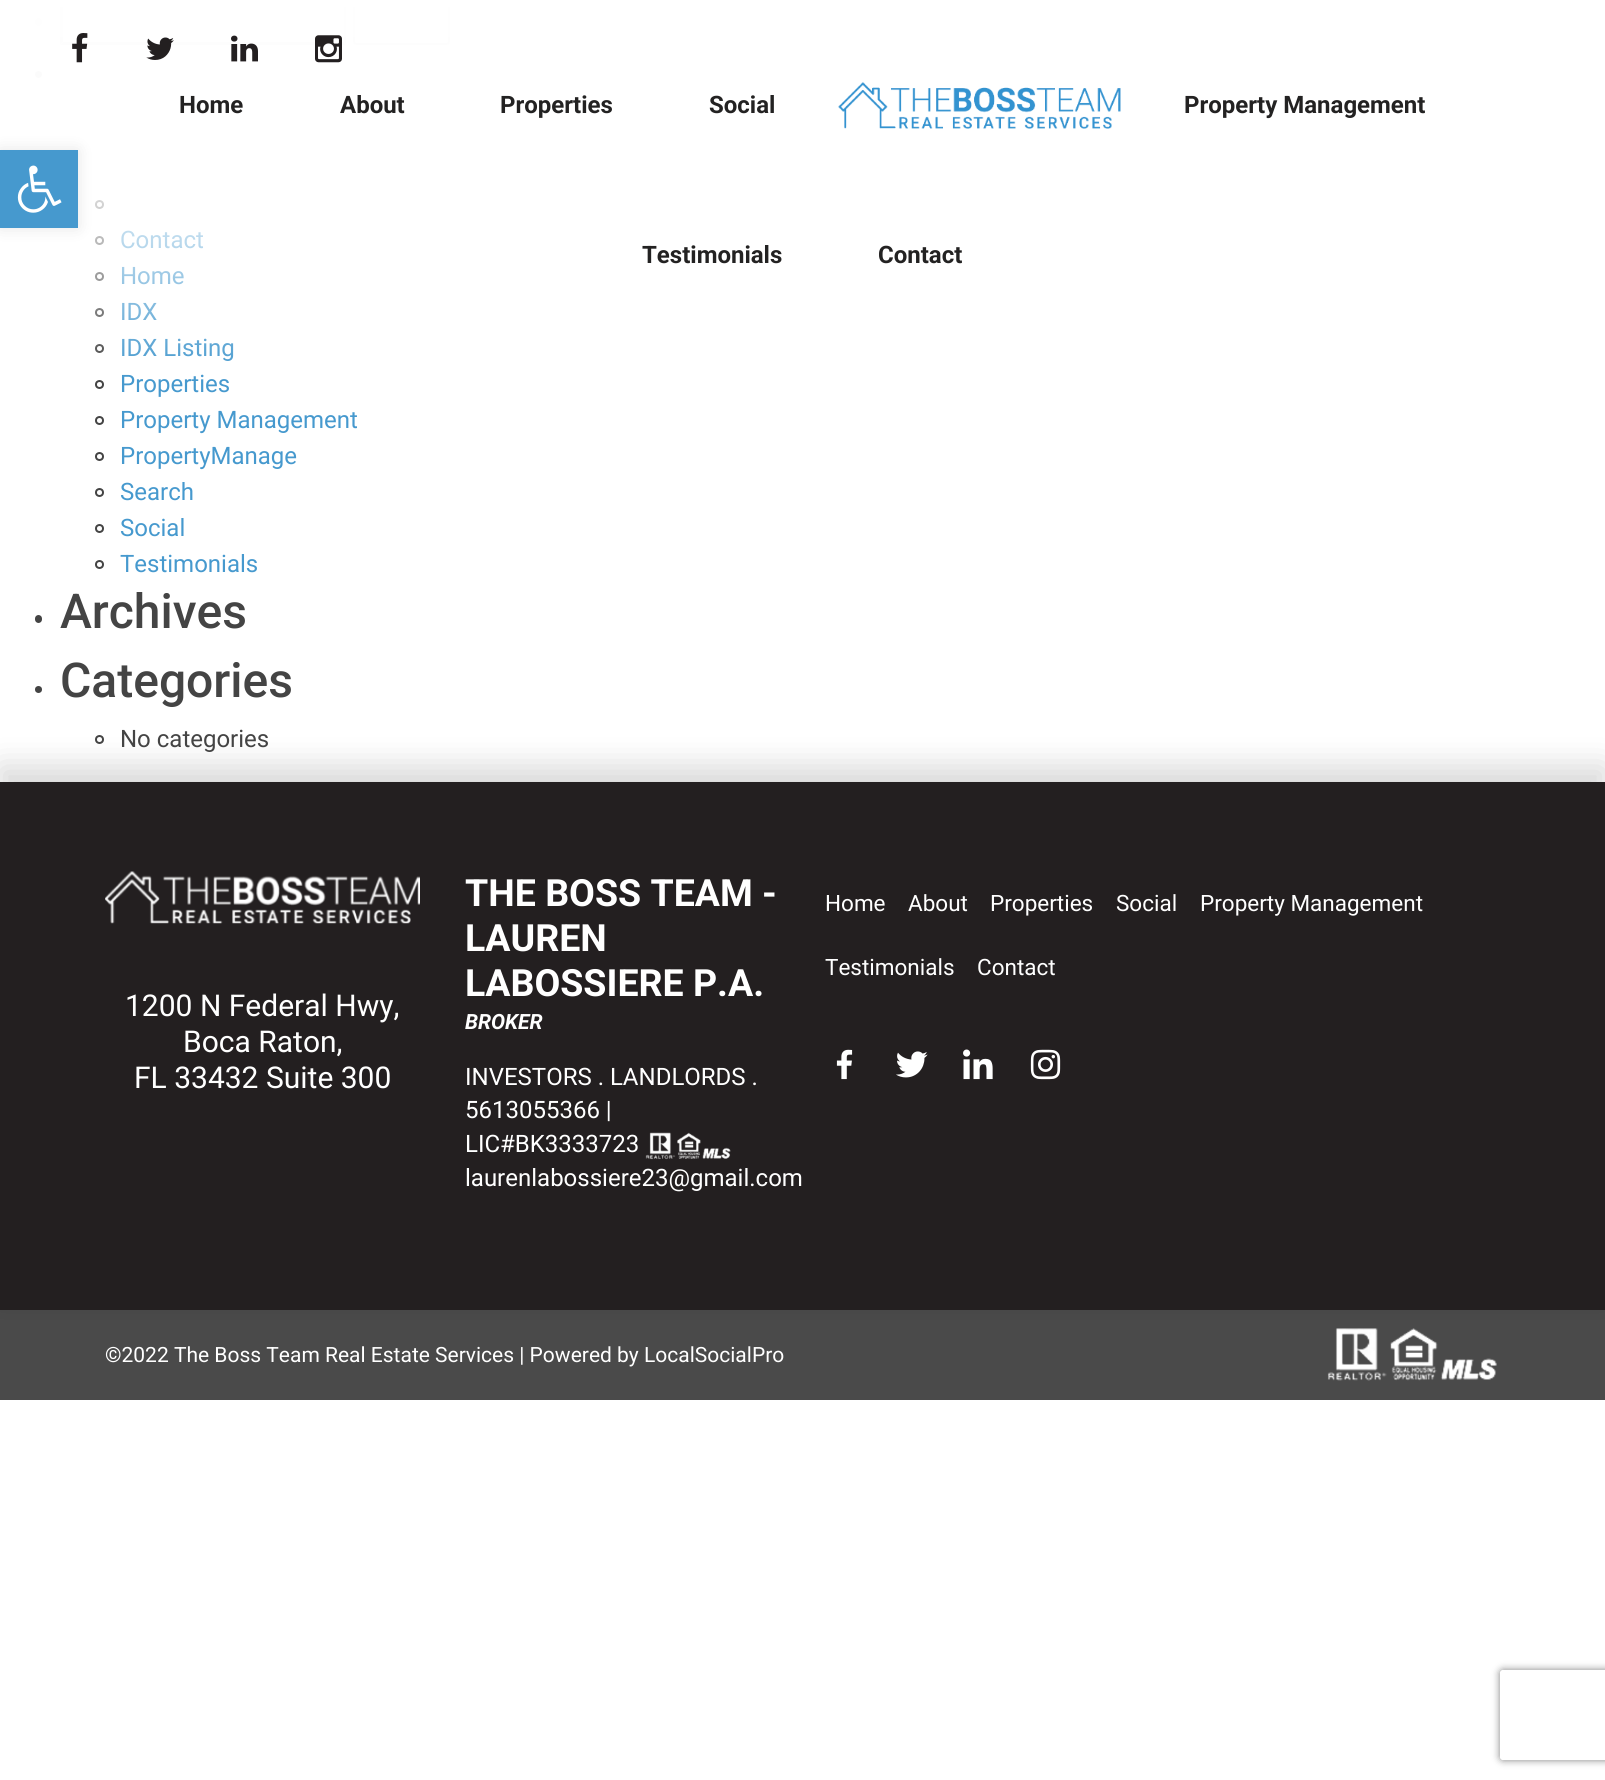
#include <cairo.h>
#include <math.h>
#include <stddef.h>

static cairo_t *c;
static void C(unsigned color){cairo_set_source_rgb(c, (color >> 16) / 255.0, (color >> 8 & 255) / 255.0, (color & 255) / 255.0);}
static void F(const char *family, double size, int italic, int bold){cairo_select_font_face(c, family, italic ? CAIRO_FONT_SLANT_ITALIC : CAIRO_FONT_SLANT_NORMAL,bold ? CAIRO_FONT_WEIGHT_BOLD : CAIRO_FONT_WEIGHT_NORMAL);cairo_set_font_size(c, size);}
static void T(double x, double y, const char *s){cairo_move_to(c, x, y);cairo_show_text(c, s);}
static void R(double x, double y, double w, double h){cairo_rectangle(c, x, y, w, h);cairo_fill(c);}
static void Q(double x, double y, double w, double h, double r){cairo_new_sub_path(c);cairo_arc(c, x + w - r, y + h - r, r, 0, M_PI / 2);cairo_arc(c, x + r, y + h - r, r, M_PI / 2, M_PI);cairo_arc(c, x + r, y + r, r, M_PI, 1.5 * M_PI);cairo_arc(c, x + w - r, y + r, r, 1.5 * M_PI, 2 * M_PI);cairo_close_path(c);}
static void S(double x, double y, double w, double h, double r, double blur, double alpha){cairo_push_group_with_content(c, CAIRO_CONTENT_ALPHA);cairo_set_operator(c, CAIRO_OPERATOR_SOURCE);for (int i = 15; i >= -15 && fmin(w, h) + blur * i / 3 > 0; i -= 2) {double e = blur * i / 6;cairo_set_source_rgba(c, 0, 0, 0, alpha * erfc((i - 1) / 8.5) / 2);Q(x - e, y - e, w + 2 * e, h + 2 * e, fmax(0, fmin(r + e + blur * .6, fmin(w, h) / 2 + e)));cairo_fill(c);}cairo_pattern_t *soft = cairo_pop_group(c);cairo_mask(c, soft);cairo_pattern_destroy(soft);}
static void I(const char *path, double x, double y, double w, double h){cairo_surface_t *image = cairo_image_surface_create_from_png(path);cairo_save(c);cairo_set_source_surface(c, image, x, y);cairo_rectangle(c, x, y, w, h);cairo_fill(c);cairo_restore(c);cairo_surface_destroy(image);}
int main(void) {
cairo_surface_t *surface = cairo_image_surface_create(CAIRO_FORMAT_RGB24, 1605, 1780);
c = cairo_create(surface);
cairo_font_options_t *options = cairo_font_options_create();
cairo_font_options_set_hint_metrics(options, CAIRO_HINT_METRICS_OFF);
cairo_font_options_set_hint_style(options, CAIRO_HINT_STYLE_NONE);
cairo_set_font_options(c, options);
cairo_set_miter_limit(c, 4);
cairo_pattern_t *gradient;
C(0xffffff);
cairo_paint(c);
C(0x444444);
Q(35,18,7,8,3.5);
cairo_fill(c);
C(0x767676);
cairo_new_path(c);
cairo_move_to(c,346,0);
cairo_line_to(c,346,45);
cairo_line_to(c,344,42);
cairo_line_to(c,344,3);
cairo_close_path(c);
cairo_fill(c);
cairo_new_path(c);
cairo_move_to(c,346,45);
cairo_line_to(c,60,45);
cairo_line_to(c,63,42);
cairo_line_to(c,344,42);
cairo_close_path(c);
cairo_fill(c);
C(0x4f4f4f);
cairo_new_path(c);
cairo_move_to(c,60,45);
cairo_line_to(c,60,0);
cairo_line_to(c,63,3);
cairo_line_to(c,63,42);
cairo_close_path(c);
cairo_fill(c);
C(0xefefef);
Q(354,1,95,43,2);
cairo_fill_preserve(c);
C(0x767676);
cairo_stroke(c);
C(0x444444);
cairo_arc(c,38.5,74.5,3.5,0,2 * M_PI);
cairo_fill(c);
cairo_arc(c,99.5,204.5,3.5,0,2 * M_PI);
cairo_stroke(c);
cairo_arc(c,99.5,240.5,3.5,0,2 * M_PI);
cairo_stroke(c);
F("Roboto",24,0,0);
C(0x4699ce);
T(120,248,"Contact");
cairo_new_path(c);
cairo_arc(c,99.5,276.5,3.5,0,2 * M_PI);
C(0x444444);
cairo_stroke(c);
C(0x4699ce);
T(120,284,"Home");
cairo_new_path(c);
cairo_arc(c,99.5,312.5,3.5,0,2 * M_PI);
C(0x444444);
cairo_stroke(c);
C(0x4699ce);
T(120,320,"IDX");
cairo_new_path(c);
cairo_arc(c,99.5,348.5,3.5,0,2 * M_PI);
C(0x444444);
cairo_stroke(c);
C(0x4699ce);
T(120,356,"IDX Listing");
gradient = cairo_pattern_create_linear(803,0,803,375);
cairo_pattern_add_color_stop_rgba(gradient,0,1,1,1,1);
cairo_pattern_add_color_stop_rgba(gradient,.4,1,1,1,.96);
cairo_pattern_add_color_stop_rgba(gradient,.67,1,1,1,.59);
cairo_pattern_add_color_stop_rgba(gradient,1,1,1,1,0);
cairo_set_source(c,gradient);
cairo_pattern_destroy(gradient);
R(35,0,415,361);
I("1.png",72,33,16,30);
I("2.png",146,37,28,23);
I("3.png",231,35,27,27);
I("4.png",315,35,27,28);
C(0x000000);
S(0,150,78,78,0,7.5,.1);
C(0x4699ce);
R(0,150,78,78);
I("5.png",17,165,45,48);
F("Roboto",24,0,1);
C(0x232222);
T(179,113,"Home");
T(340,113,"About");
T(500,113,"Properties");
T(709,113,"Social");
I("6.png",838,82,283,47);
T(1184,113,"Property Management");
T(642,263,"Testimonials");
T(878,263,"Contact");
cairo_new_path(c);
cairo_arc(c,99.5,384.5,3.5,0,2 * M_PI);
C(0x444444);
cairo_stroke(c);
F("Roboto",24,0,0);
C(0x4699ce);
T(120,392,"Properties");
cairo_new_path(c);
cairo_arc(c,99.5,420.5,3.5,0,2 * M_PI);
C(0x444444);
cairo_stroke(c);
C(0x4699ce);
T(120,428,"Property Management");
cairo_new_path(c);
cairo_arc(c,99.5,456.5,3.5,0,2 * M_PI);
C(0x444444);
cairo_stroke(c);
C(0x4699ce);
T(120,464,"PropertyManage");
cairo_new_path(c);
cairo_arc(c,99.5,492.5,3.5,0,2 * M_PI);
C(0x444444);
cairo_stroke(c);
C(0x4699ce);
T(120,500,"Search");
cairo_new_path(c);
cairo_arc(c,99.5,528.5,3.5,0,2 * M_PI);
C(0x444444);
cairo_stroke(c);
C(0x4699ce);
T(120,536,"Social");
cairo_new_path(c);
cairo_arc(c,99.5,564.5,3.5,0,2 * M_PI);
C(0x444444);
cairo_stroke(c);
C(0x4699ce);
T(120,572,"Testimonials");
C(0x444444);
Q(35,615,7,8,3.5);
cairo_fill(c);
F("Roboto Medium",48,0,0);
T(60,628,"Archives");
cairo_new_path(c);
cairo_arc(c,38.5,689.5,3.5,0,2 * M_PI);
cairo_fill(c);
T(60,697,"Categories");
C(0x4a4a4a);
R(0,1310,1605,90);
C(0x000000);
S(0,767,1605,528,0,16.5,.16);
cairo_arc(c,99.5,739.5,3.5,0,2 * M_PI);
C(0x444444);
cairo_stroke(c);
F("Roboto",24,0,0);
T(120,747,"No categories");
C(0x231f20);
R(0,782,1605,528);
F("Roboto",37.5,0,1);
C(0xffffff);
T(465,906,"THE BOSS TEAM -");
T(465,951,"LAUREN");
T(465,996,"LABOSSIERE P.A.");
F("Roboto",21,1,1);
T(465,1029,"BROKER");
F("Roboto",24,0,0);
T(465,1085,"INVESTORS . LANDLORDS .");
T(465,1118,"5613055366 |");
T(465,1152,"LIC#BK3333723");
I("7.png",645,1132,86,28);
T(465,1186,"laurenlabossiere23@gmail.com");
F("Roboto",22.5,0,0);
T(825,911,"Home");
T(908,911,"About");
T(990,911,"Properties");
T(1116,911,"Social");
T(1200,911,"Property Management");
T(825,975,"Testimonials");
T(977,975,"Contact");
I("8.png",836,1049,17,31);
I("9.png",896,1051,32,27);
I("10.png",963,1049,30,31);
I("11.png",1030,1049,31,31);
I("12.png",105,871,315,53);
F("Roboto",30,0,0);
T(125,1016,"1200 N Federal Hwy,");
T(183,1052,"Boca Raton,");
T(134,1088,"FL 33432 Suite 300");
F("Roboto",21,0,0);
T(105,1362,"©2022 The Boss Team Real Estate Services | Powered by LocalSocialPro");
I("13.png",1327,1328,170,53);
cairo_save(c);
cairo_set_fill_rule(c,CAIRO_FILL_RULE_EVEN_ODD);
cairo_new_path(c);
cairo_move_to(c,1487,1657);
cairo_line_to(c,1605,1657);
cairo_line_to(c,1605,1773);
cairo_line_to(c,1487,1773);
cairo_close_path(c);
cairo_move_to(c,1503,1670);
cairo_line_to(c,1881,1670);
cairo_curve_to(c,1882.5,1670,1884,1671.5,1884,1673);
cairo_line_to(c,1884,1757);
cairo_curve_to(c,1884,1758.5,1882.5,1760,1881,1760);
cairo_line_to(c,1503,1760);
cairo_curve_to(c,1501.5,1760,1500,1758.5,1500,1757);
cairo_line_to(c,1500,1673);
cairo_curve_to(c,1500,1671.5,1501.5,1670,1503,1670);
cairo_close_path(c);
cairo_clip(c);
C(0x808080);
S(1500,1670,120,90,3,4,1);
cairo_restore(c);
cairo_surface_write_to_png(surface, "o.png");
cairo_font_options_destroy(options);
cairo_destroy(c);
cairo_surface_destroy(surface);
return 0;
}
